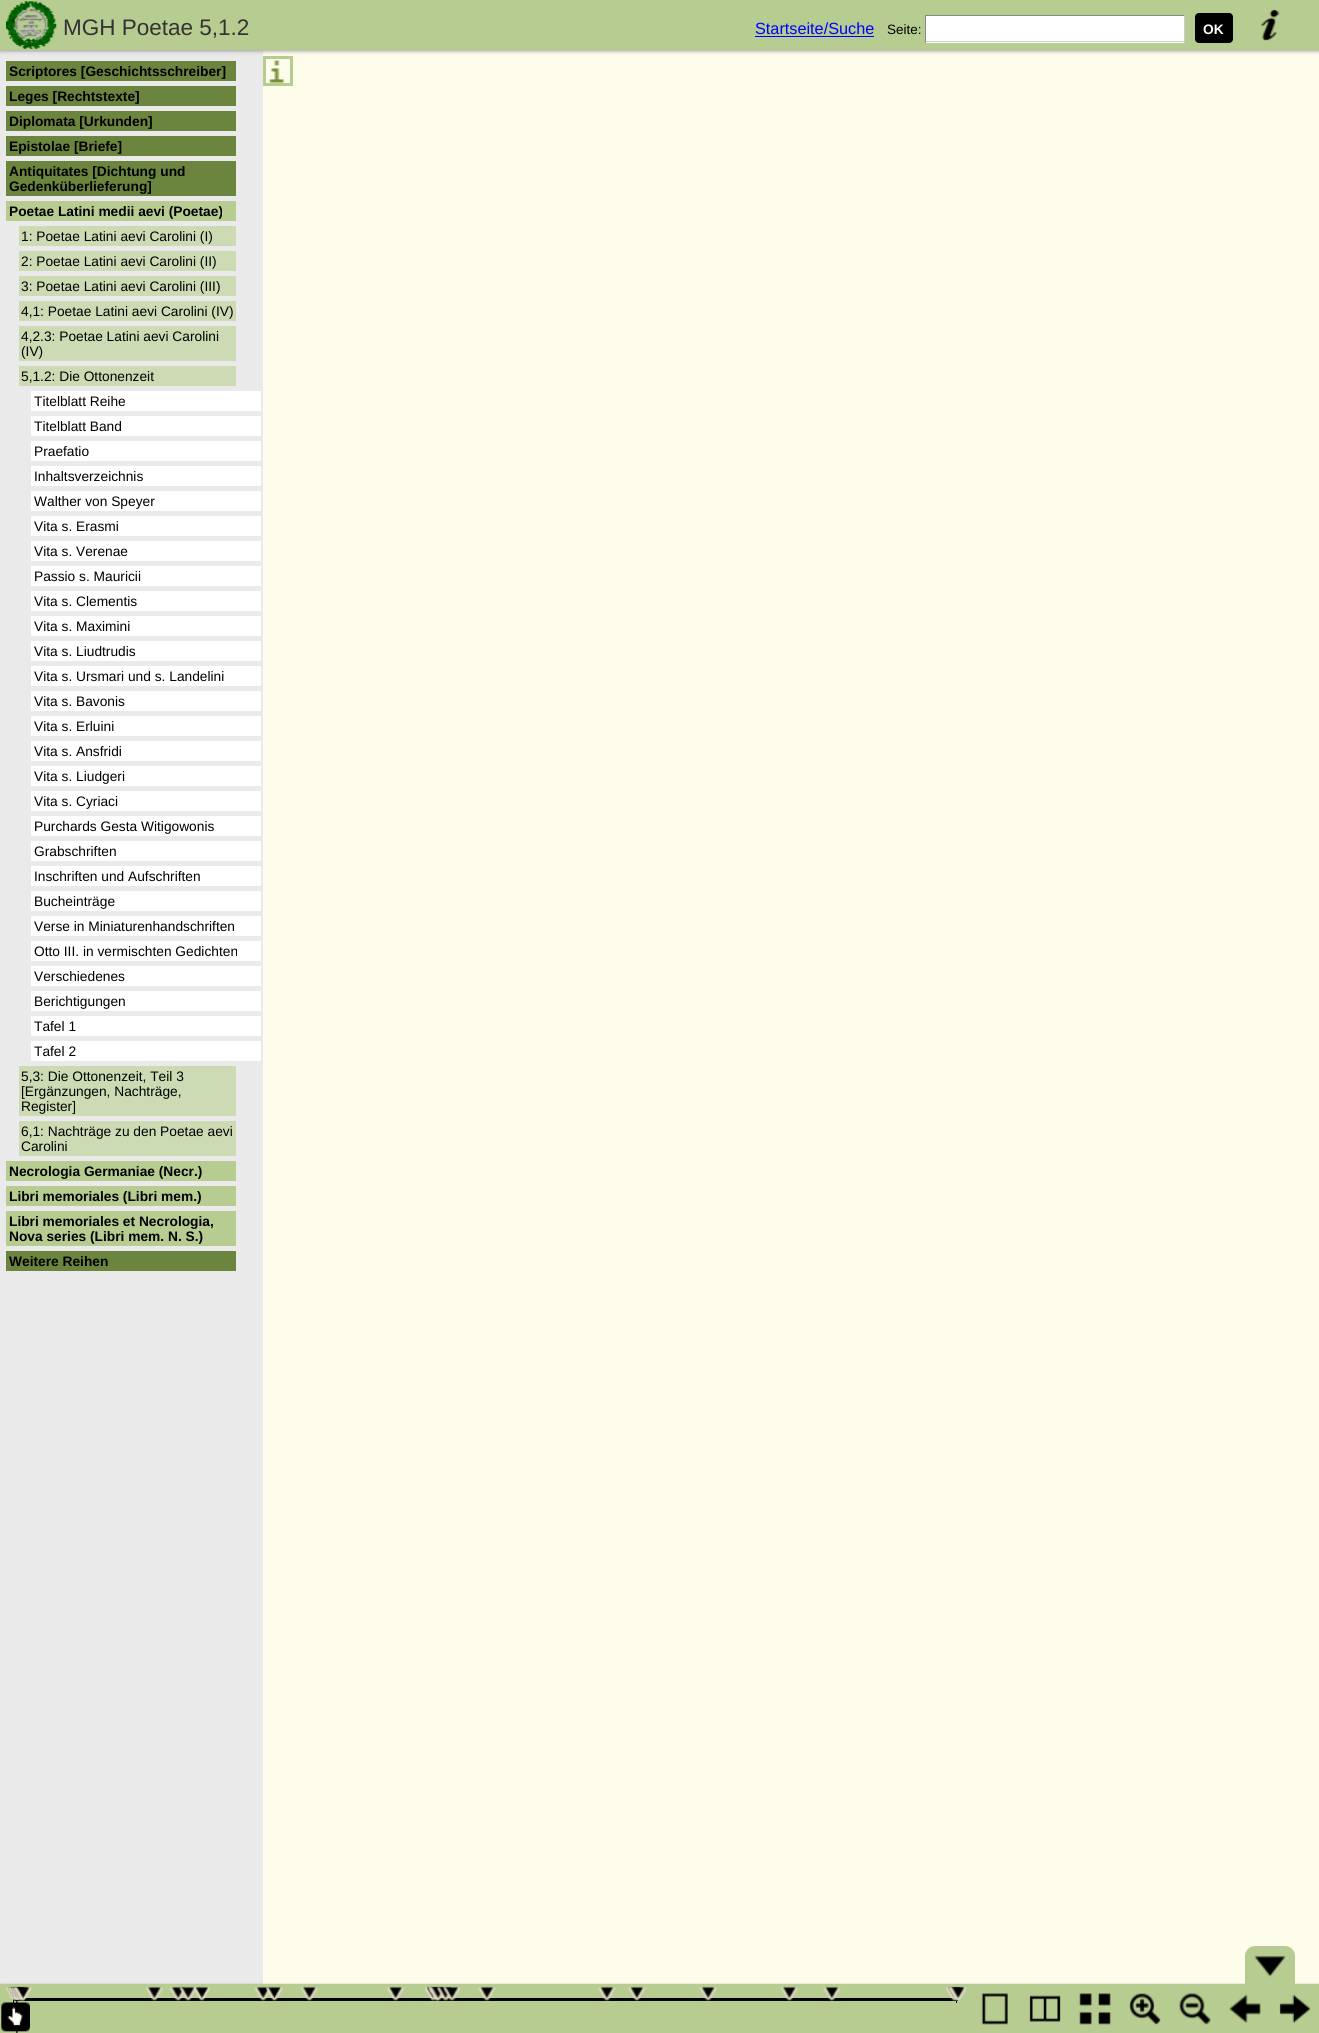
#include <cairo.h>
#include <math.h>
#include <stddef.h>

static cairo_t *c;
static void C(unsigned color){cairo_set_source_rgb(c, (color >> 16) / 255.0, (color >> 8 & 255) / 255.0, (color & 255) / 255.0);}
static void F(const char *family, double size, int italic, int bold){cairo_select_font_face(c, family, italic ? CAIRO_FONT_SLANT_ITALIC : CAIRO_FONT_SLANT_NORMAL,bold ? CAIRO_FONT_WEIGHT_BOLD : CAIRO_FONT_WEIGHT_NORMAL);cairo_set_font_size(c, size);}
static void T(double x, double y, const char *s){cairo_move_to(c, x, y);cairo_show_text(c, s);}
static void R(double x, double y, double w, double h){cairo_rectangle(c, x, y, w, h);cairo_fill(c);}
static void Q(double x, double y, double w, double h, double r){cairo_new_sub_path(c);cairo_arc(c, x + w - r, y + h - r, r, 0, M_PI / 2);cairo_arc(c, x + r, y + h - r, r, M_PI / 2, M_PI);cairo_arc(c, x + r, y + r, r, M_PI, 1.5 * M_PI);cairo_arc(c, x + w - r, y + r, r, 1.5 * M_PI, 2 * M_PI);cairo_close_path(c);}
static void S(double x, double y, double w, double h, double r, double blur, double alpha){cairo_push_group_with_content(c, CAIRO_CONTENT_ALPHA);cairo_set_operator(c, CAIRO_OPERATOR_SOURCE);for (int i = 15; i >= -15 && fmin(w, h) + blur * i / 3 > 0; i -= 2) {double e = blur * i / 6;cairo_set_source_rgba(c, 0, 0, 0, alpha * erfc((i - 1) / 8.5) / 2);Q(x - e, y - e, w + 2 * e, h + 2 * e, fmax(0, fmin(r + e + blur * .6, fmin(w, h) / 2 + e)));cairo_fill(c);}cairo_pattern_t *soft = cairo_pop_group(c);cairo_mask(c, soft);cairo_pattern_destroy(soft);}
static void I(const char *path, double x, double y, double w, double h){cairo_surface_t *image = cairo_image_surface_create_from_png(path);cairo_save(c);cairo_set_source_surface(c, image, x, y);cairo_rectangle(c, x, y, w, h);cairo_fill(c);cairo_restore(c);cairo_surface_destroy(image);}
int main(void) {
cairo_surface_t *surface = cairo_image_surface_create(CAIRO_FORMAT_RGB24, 1319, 2033);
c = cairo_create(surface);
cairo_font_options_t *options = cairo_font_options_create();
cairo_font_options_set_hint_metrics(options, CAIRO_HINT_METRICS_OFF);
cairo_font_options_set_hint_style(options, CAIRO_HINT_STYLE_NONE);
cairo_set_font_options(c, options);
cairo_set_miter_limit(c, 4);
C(0xfefdeb);
cairo_paint(c);
cairo_rectangle(c,264.5,57.5,27,27);
C(0xb6cc91);
cairo_set_line_width(c,3);
cairo_stroke(c);
C(0xeaeaea);
R(0,50,263,1934);
C(0x999999);
S(0,1,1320,50,0,2,1);
C(0xb6cc91);
R(0,0,1319,50);
I("1.png",6,1,51,48);
F("Liberation Sans",22.5,0,0);
C(0x333333);
T(63,35,"MGH Poetae 5,1.2");
F("Liberation Sans",16.25,0,0);
C(0x0000ff);
T(755,34,"Startseite/Suche");
R(755,36,119,1);
F("Liberation Sans",13.5,0,0);
C(0x000000);
T(887,34,"Seite:");
C(0xffffff);
R(926,16,258,27);
C(0x888888);
R(925,15,260,1);
C(0xcccccc);
R(1184,15,1,28);
R(925,41,260,1);
C(0x888888);
R(925,15,1,28);
C(0x000000);
Q(1195,13,38,30,4);
cairo_fill(c);
F("Liberation Sans",13.75,0,1);
C(0xffffff);
T(1203,34,"OK");
I("2.png",1261,9,19,32);
I("3.png",269,60,16,23);
C(0x333333);
S(1,1985,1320,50,0,1,1);
C(0xb6cc91);
R(0,1984,1319,49);
cairo_new_path(c);
cairo_move_to(c,1255,1946);
cairo_line_to(c,1285,1946);
cairo_curve_to(c,1290.5,1946,1295,1950.5,1295,1956);
cairo_line_to(c,1295,1984);
cairo_line_to(c,1245,1984);
cairo_line_to(c,1245,1956);
cairo_curve_to(c,1245,1950.5,1249.5,1946,1255,1946);
cairo_close_path(c);
cairo_fill(c);
I("4.png",1254,1955,32,22);
C(0x000000);
R(13,1998,945,3);
R(13,1995,1,8);
I("5.png",5,1986,19,15);
I("22.png",8,1987,18,14);
I("6.png",10,1986,19,15);
I("7.png",13,1986,18,15);
I("8.png",14,1986,18,15);
I("9.png",146,1986,18,15);
I("10.png",169,1986,18,15);
I("11.png",179,1986,18,15);
I("12.png",193,1986,18,15);
I("13.png",254,1986,18,15);
I("14.png",265,1986,18,15);
I("9.png",301,1986,18,15);
I("15.png",387,1986,18,15);
I("13.png",424,1986,18,15);
I("16.png",428,1986,18,15);
I("17.png",429,1986,18,15);
I("18.png",436,1986,19,15);
I("19.png",442,1986,19,15);
I("20.png",478,1986,18,15);
I("20.png",598,1986,18,15);
I("20.png",628,1986,18,15);
I("13.png",699,1986,18,15);
I("9.png",781,1986,18,15);
I("20.png",823,1986,18,15);
R(956,1995,1,8);
I("21.png",946,1986,18,15);
I("23.png",948,1986,18,15);
I("24.png",949,1987,18,14);
I("25.png",1,2000,29,33);
I("26.png",981,1993,27,32);
I("27.png",1029,1995,32,27);
I("28.png",1079,1993,32,32);
I("29.png",1129,1993,32,32);
I("30.png",1179,1993,32,32);
I("31.png",1229,1994,32,29);
I("32.png",1279,1994,32,29);
C(0x6b853e);
R(6,61,230,20);
C(0x000000);
T(9,76,"Scriptores [Geschichtsschreiber]");
C(0x6b853e);
R(6,86,230,20);
C(0x000000);
T(9,101,"Leges [Rechtstexte]");
C(0x6b853e);
R(6,111,230,20);
C(0x000000);
T(9,126,"Diplomata [Urkunden]");
C(0x6b853e);
R(6,136,230,20);
C(0x000000);
T(9,151,"Epistolae [Briefe]");
C(0x6b853e);
R(6,161,230,35);
C(0x000000);
T(9,176,"Antiquitates [Dichtung und");
T(9,191,"Gedenküberlieferung]");
C(0xb6cc91);
R(6,201,230,20);
C(0x000000);
T(9,216,"Poetae Latini medii aevi (Poetae)");
C(0xccdbb3);
R(19,226,217,20);
F("Liberation Sans",13.75,0,0);
C(0x000000);
T(21,241,"1: Poetae Latini aevi Carolini (I)");
C(0xccdbb3);
R(19,251,217,20);
C(0x000000);
T(21,266,"2: Poetae Latini aevi Carolini (II)");
C(0xccdbb3);
R(19,276,217,20);
C(0x000000);
T(21,291,"3: Poetae Latini aevi Carolini (III)");
C(0xccdbb3);
R(19,301,217,20);
C(0x000000);
T(21,316,"4,1: Poetae Latini aevi Carolini (IV)");
C(0xccdbb3);
R(19,326,217,35);
C(0x000000);
T(21,341,"4,2.3: Poetae Latini aevi Carolini");
T(21,356,"(IV)");
C(0xccdbb3);
R(19,366,217,20);
C(0x000000);
T(21,381,"5,1.2: Die Ottonenzeit");
C(0xffffff);
R(31,391,230,20);
C(0x000000);
T(34,406,"Titelblatt Reihe");
C(0xffffff);
R(31,416,230,20);
C(0x000000);
T(34,431,"Titelblatt Band");
C(0xffffff);
R(31,441,230,20);
C(0x000000);
T(34,456,"Praefatio");
C(0xffffff);
R(31,466,230,20);
C(0x000000);
T(34,481,"Inhaltsverzeichnis");
C(0xffffff);
R(31,491,230,20);
C(0x000000);
T(34,506,"Walther von Speyer");
C(0xffffff);
R(31,516,230,20);
C(0x000000);
T(34,531,"Vita s. Erasmi");
C(0xffffff);
R(31,541,230,20);
C(0x000000);
T(34,556,"Vita s. Verenae");
C(0xffffff);
R(31,566,230,20);
C(0x000000);
T(34,581,"Passio s. Mauricii");
C(0xffffff);
R(31,591,230,20);
C(0x000000);
T(34,606,"Vita s. Clementis");
C(0xffffff);
R(31,616,230,20);
C(0x000000);
T(34,631,"Vita s. Maximini");
C(0xffffff);
R(31,641,230,20);
C(0x000000);
T(34,656,"Vita s. Liudtrudis");
C(0xffffff);
R(31,666,230,20);
C(0x000000);
T(34,681,"Vita s. Ursmari und s. Landelini");
C(0xffffff);
R(31,691,230,20);
C(0x000000);
T(34,706,"Vita s. Bavonis");
C(0xffffff);
R(31,716,230,20);
C(0x000000);
T(34,731,"Vita s. Erluini");
C(0xffffff);
R(31,741,230,20);
C(0x000000);
T(34,756,"Vita s. Ansfridi");
C(0xffffff);
R(31,766,230,20);
C(0x000000);
T(34,781,"Vita s. Liudgeri");
C(0xffffff);
R(31,791,230,20);
C(0x000000);
T(34,806,"Vita s. Cyriaci");
C(0xffffff);
R(31,816,230,20);
C(0x000000);
T(34,831,"Purchards Gesta Witigowonis");
C(0xffffff);
R(31,841,230,20);
C(0x000000);
T(34,856,"Grabschriften");
C(0xffffff);
R(31,866,230,20);
C(0x000000);
T(34,881,"Inschriften und Aufschriften");
C(0xffffff);
R(31,891,230,20);
C(0x000000);
T(34,906,"Bucheinträge");
C(0xffffff);
R(31,916,230,20);
C(0x000000);
T(34,931,"Verse in Miniaturenhandschriften");
C(0xffffff);
R(31,941,230,20);
C(0x000000);
T(34,956,"Otto III. in vermischten Gedichten");
C(0xffffff);
R(31,966,230,20);
C(0x000000);
T(34,981,"Verschiedenes");
C(0xffffff);
R(31,991,230,20);
C(0x000000);
T(34,1006,"Berichtigungen");
C(0xffffff);
R(31,1016,230,20);
C(0x000000);
T(34,1031,"Tafel 1");
C(0xffffff);
R(31,1041,230,20);
C(0x000000);
T(34,1056,"Tafel 2");
C(0xccdbb3);
R(19,1066,217,50);
C(0x000000);
T(21,1081,"5,3: Die Ottonenzeit, Teil 3");
T(21,1096,"[Ergänzungen, Nachträge,");
T(21,1111,"Register]");
C(0xccdbb3);
R(19,1121,217,35);
C(0x000000);
T(21,1136,"6,1: Nachträge zu den Poetae aevi");
T(21,1151,"Carolini");
C(0xb6cc91);
R(6,1161,230,20);
F("Liberation Sans",13.75,0,1);
C(0x000000);
T(9,1176,"Necrologia Germaniae (Necr.)");
C(0xb6cc91);
R(6,1186,230,20);
C(0x000000);
T(9,1201,"Libri memoriales (Libri mem.)");
C(0xb6cc91);
R(6,1211,230,35);
C(0x000000);
T(9,1226,"Libri memoriales et Necrologia,");
T(9,1241,"Nova series (Libri mem. N. S.)");
C(0x6b853e);
R(6,1251,230,20);
C(0x000000);
T(9,1266,"Weitere Reihen");
cairo_surface_write_to_png(surface, "o.png");
cairo_font_options_destroy(options);
cairo_destroy(c);
cairo_surface_destroy(surface);
return 0;
}
